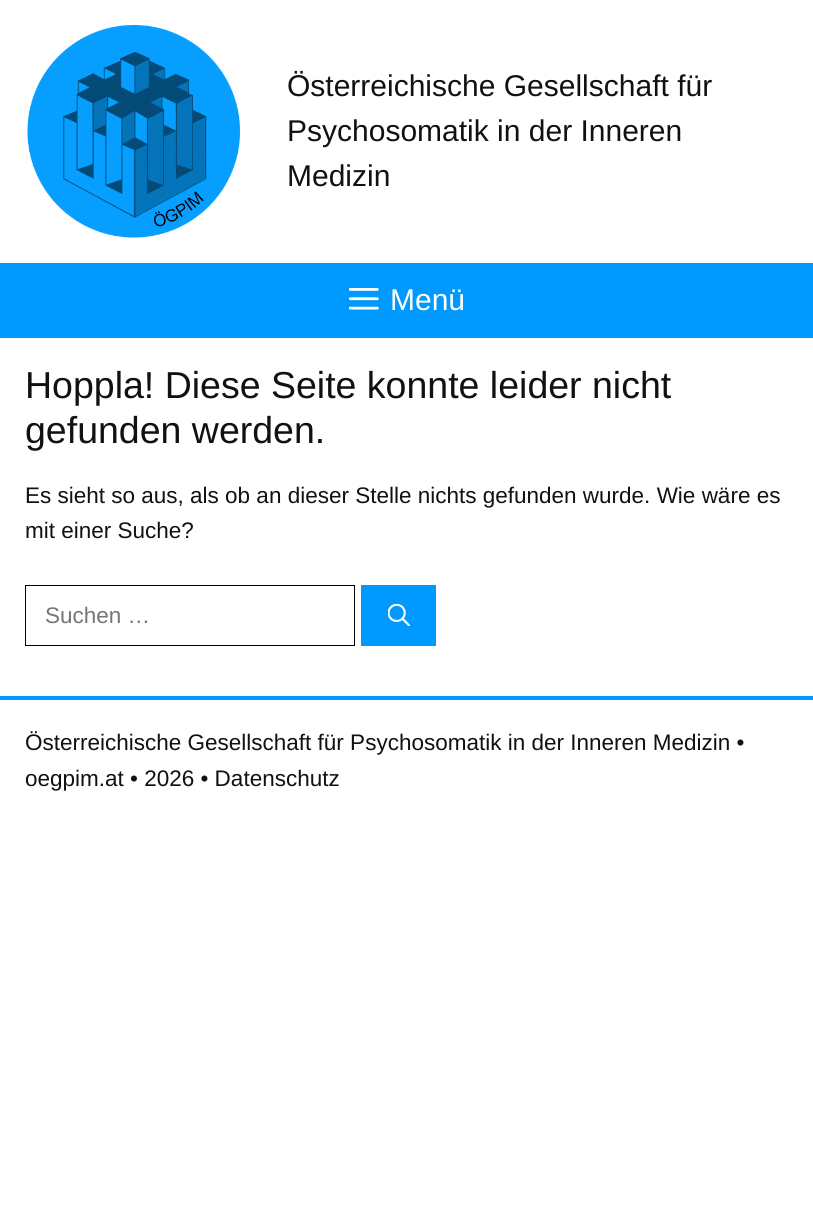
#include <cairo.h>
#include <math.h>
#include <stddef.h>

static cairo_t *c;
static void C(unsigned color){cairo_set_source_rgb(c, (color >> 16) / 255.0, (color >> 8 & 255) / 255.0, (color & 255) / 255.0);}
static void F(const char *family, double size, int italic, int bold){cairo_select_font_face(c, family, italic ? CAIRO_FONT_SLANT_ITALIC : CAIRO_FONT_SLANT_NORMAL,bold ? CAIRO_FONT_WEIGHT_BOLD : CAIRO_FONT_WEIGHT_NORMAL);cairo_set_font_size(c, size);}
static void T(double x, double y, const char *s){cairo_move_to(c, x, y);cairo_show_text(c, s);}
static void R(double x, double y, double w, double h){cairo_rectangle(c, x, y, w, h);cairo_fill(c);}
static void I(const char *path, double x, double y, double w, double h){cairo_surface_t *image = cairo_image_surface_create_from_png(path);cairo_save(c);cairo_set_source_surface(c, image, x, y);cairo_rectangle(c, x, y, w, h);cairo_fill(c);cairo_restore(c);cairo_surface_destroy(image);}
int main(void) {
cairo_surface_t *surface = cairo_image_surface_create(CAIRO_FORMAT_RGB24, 813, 1205);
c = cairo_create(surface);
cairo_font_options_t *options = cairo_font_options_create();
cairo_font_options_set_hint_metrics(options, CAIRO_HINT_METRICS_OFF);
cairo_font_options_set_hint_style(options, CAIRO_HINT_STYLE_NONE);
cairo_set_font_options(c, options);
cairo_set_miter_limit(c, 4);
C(0xffffff);
cairo_paint(c);
I("1.png",27,25,213,213);
F("Liberation Sans",30,0,0);
C(0x111111);
T(287,96,"Österreichische Gesellschaft für");
T(287,141,"Psychosomatik in der Inneren");
T(287,186,"Medizin");
C(0x0099ff);
R(0,263,813,75);
I("2.png",349,288,30,22);
C(0xffffff);
T(390,310,"Menü");
F("Liberation Sans",37.5,0,0);
C(0x111111);
T(25,398,"Hoppla! Diese Seite konnte leider nicht");
T(25,443,"gefunden werden.");
F("Liberation Sans",22.5,0,0);
T(25,503,"Es sieht so aus, als ob an dieser Stelle nichts gefunden wurde. Wie wäre es");
T(25,538,"mit einer Suche?");
cairo_rectangle(c,25.5,585.5,329,60);
C(0x000000);
cairo_set_line_width(c,1);
cairo_stroke(c);
C(0x757575);
T(45,623,"Suchen …");
C(0x0099ff);
R(361,585,75,61);
I("3.png",388,604,22,22);
R(0,696,813,4);
C(0x111111);
T(25,750,"Österreichische Gesellschaft für Psychosomatik in der Inneren Medizin •");
T(25,786,"oegpim.at • 2026 • Datenschutz");
cairo_surface_write_to_png(surface, "o.png");
cairo_font_options_destroy(options);
cairo_destroy(c);
cairo_surface_destroy(surface);
return 0;
}
